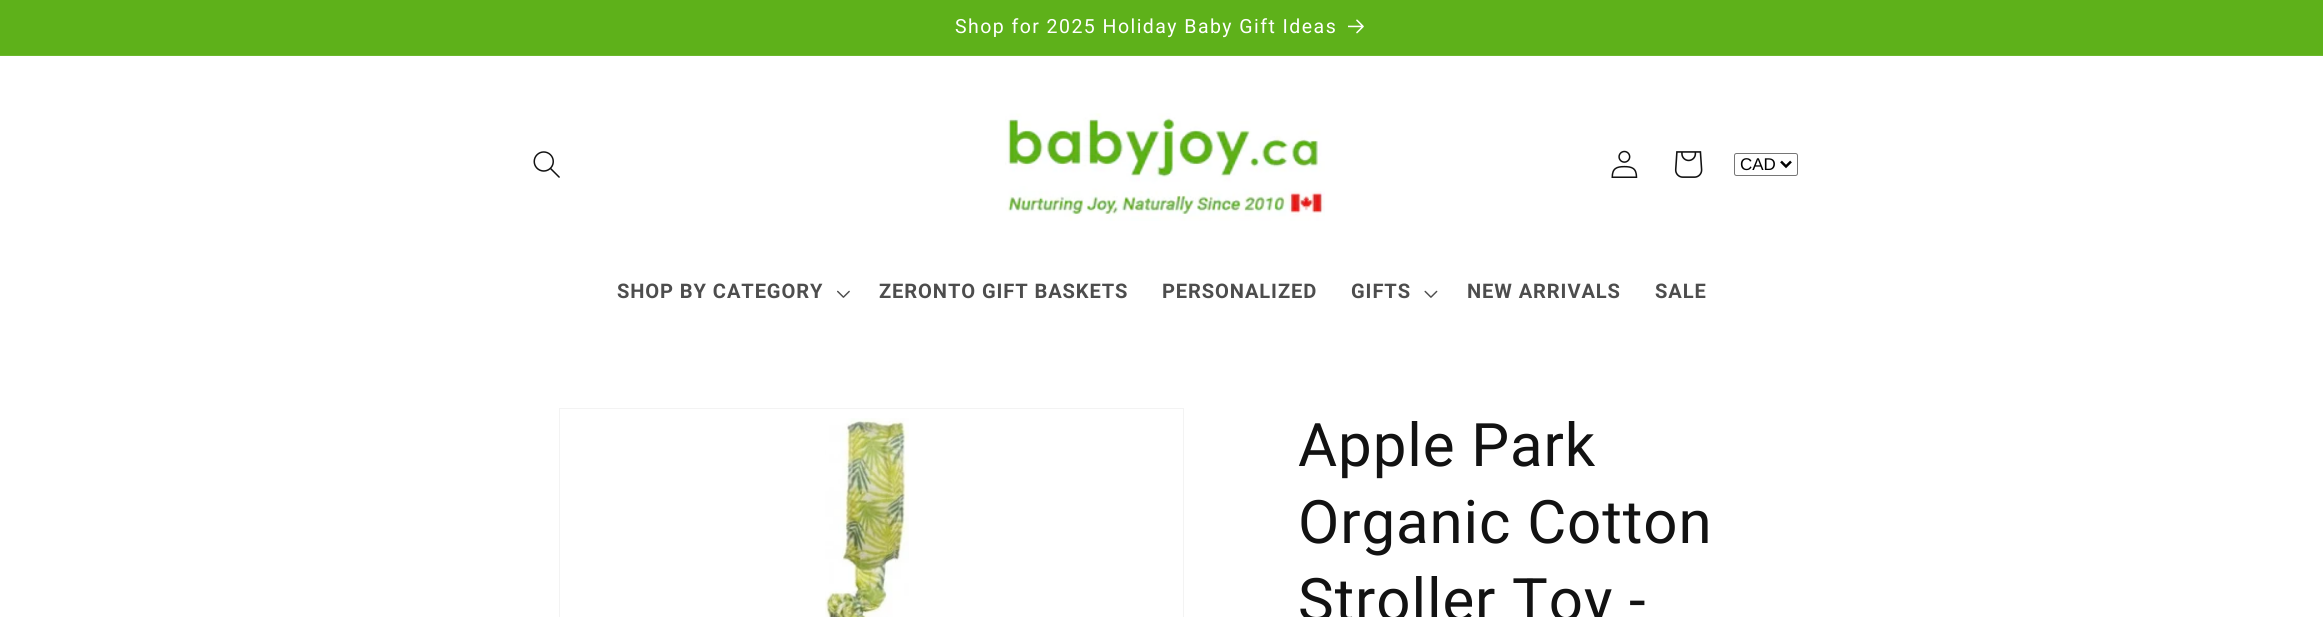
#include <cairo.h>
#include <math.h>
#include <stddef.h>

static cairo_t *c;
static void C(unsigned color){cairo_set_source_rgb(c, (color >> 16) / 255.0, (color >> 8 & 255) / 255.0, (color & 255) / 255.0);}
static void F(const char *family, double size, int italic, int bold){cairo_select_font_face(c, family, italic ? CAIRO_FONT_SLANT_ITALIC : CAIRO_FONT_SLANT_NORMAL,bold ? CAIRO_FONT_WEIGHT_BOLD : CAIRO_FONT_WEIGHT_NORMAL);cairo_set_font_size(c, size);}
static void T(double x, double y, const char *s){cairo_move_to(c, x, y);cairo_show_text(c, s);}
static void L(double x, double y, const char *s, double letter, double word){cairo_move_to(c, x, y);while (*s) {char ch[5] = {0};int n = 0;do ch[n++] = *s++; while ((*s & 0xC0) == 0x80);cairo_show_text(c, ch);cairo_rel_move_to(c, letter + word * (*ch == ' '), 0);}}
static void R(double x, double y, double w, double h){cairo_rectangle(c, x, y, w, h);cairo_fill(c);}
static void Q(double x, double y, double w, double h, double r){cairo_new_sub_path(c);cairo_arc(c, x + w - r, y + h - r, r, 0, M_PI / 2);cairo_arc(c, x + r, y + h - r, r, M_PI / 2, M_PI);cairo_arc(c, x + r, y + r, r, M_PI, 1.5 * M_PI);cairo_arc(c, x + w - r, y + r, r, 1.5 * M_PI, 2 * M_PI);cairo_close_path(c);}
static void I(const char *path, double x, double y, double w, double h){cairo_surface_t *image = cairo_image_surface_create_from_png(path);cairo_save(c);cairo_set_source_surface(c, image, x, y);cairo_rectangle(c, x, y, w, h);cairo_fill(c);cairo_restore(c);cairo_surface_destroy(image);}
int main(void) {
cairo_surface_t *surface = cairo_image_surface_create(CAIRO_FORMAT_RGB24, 2323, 617);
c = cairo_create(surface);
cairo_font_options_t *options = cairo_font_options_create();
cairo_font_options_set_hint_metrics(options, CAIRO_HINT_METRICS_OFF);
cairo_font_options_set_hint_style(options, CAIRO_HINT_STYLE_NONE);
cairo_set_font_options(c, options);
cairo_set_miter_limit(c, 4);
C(0xffffff);
cairo_paint(c);
C(0x5eb11a);
R(0,0,2323,55);
C(0x6bb72c);
R(0,55,2323,1);
F("Roboto",19.5,0,0);
C(0xffffff);
L(955,33,"Shop for 2025 Holiday Baby Gift Ideas",1.45,0);
I("1.png",1348,19,16,15);
I("2.png",533,151,27,27);
I("3.png",1005,113,320,108);
I("4.png",1611,150,27,28);
I("5.png",1674,151,29,27);
Q(1734.5,153.5,63,22,2);
C(0x767676);
cairo_set_line_width(c,1);
cairo_stroke(c);
cairo_new_path(c);
cairo_move_to(c,1781,161.5);
cairo_line_to(c,1786,166.5);
cairo_line_to(c,1791,161.5);
C(0x000000);
cairo_set_line_width(c,2.5);
cairo_stroke(c);
F("Liberation Sans",17,0,0);
T(1740,170,"CAD");
F("Roboto",20.1,0,1);
C(0x4d4d4d);
L(617,298,"SHOP BY CATEGORY",.9,0);
I("6.png",837,290,13,8);
L(879,298,"ZERONTO GIFT BASKETS",.9,0);
L(1162,298,"PERSONALIZED",.9,0);
L(1351,298,"GIFTS",.9,0);
I("7.png",1424,290,14,8);
L(1467,298,"NEW ARRIVALS",.9,0);
L(1655,298,"SALE",.9,0);
cairo_rectangle(c,559.5,408.5,624,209);
C(0xf3f3f3);
cairo_set_line_width(c,1);
cairo_stroke(c);
I("8.png",825,418,84,199);
F("Roboto",60,0,0);
C(0x121212);
L(1298,466,"Apple Park",.9,0);
L(1298,543,"Organic Cotton",.9,0);
L(1298,621,"Stroller Toy -",.9,0);
cairo_surface_write_to_png(surface, "o.png");
cairo_font_options_destroy(options);
cairo_destroy(c);
cairo_surface_destroy(surface);
return 0;
}
